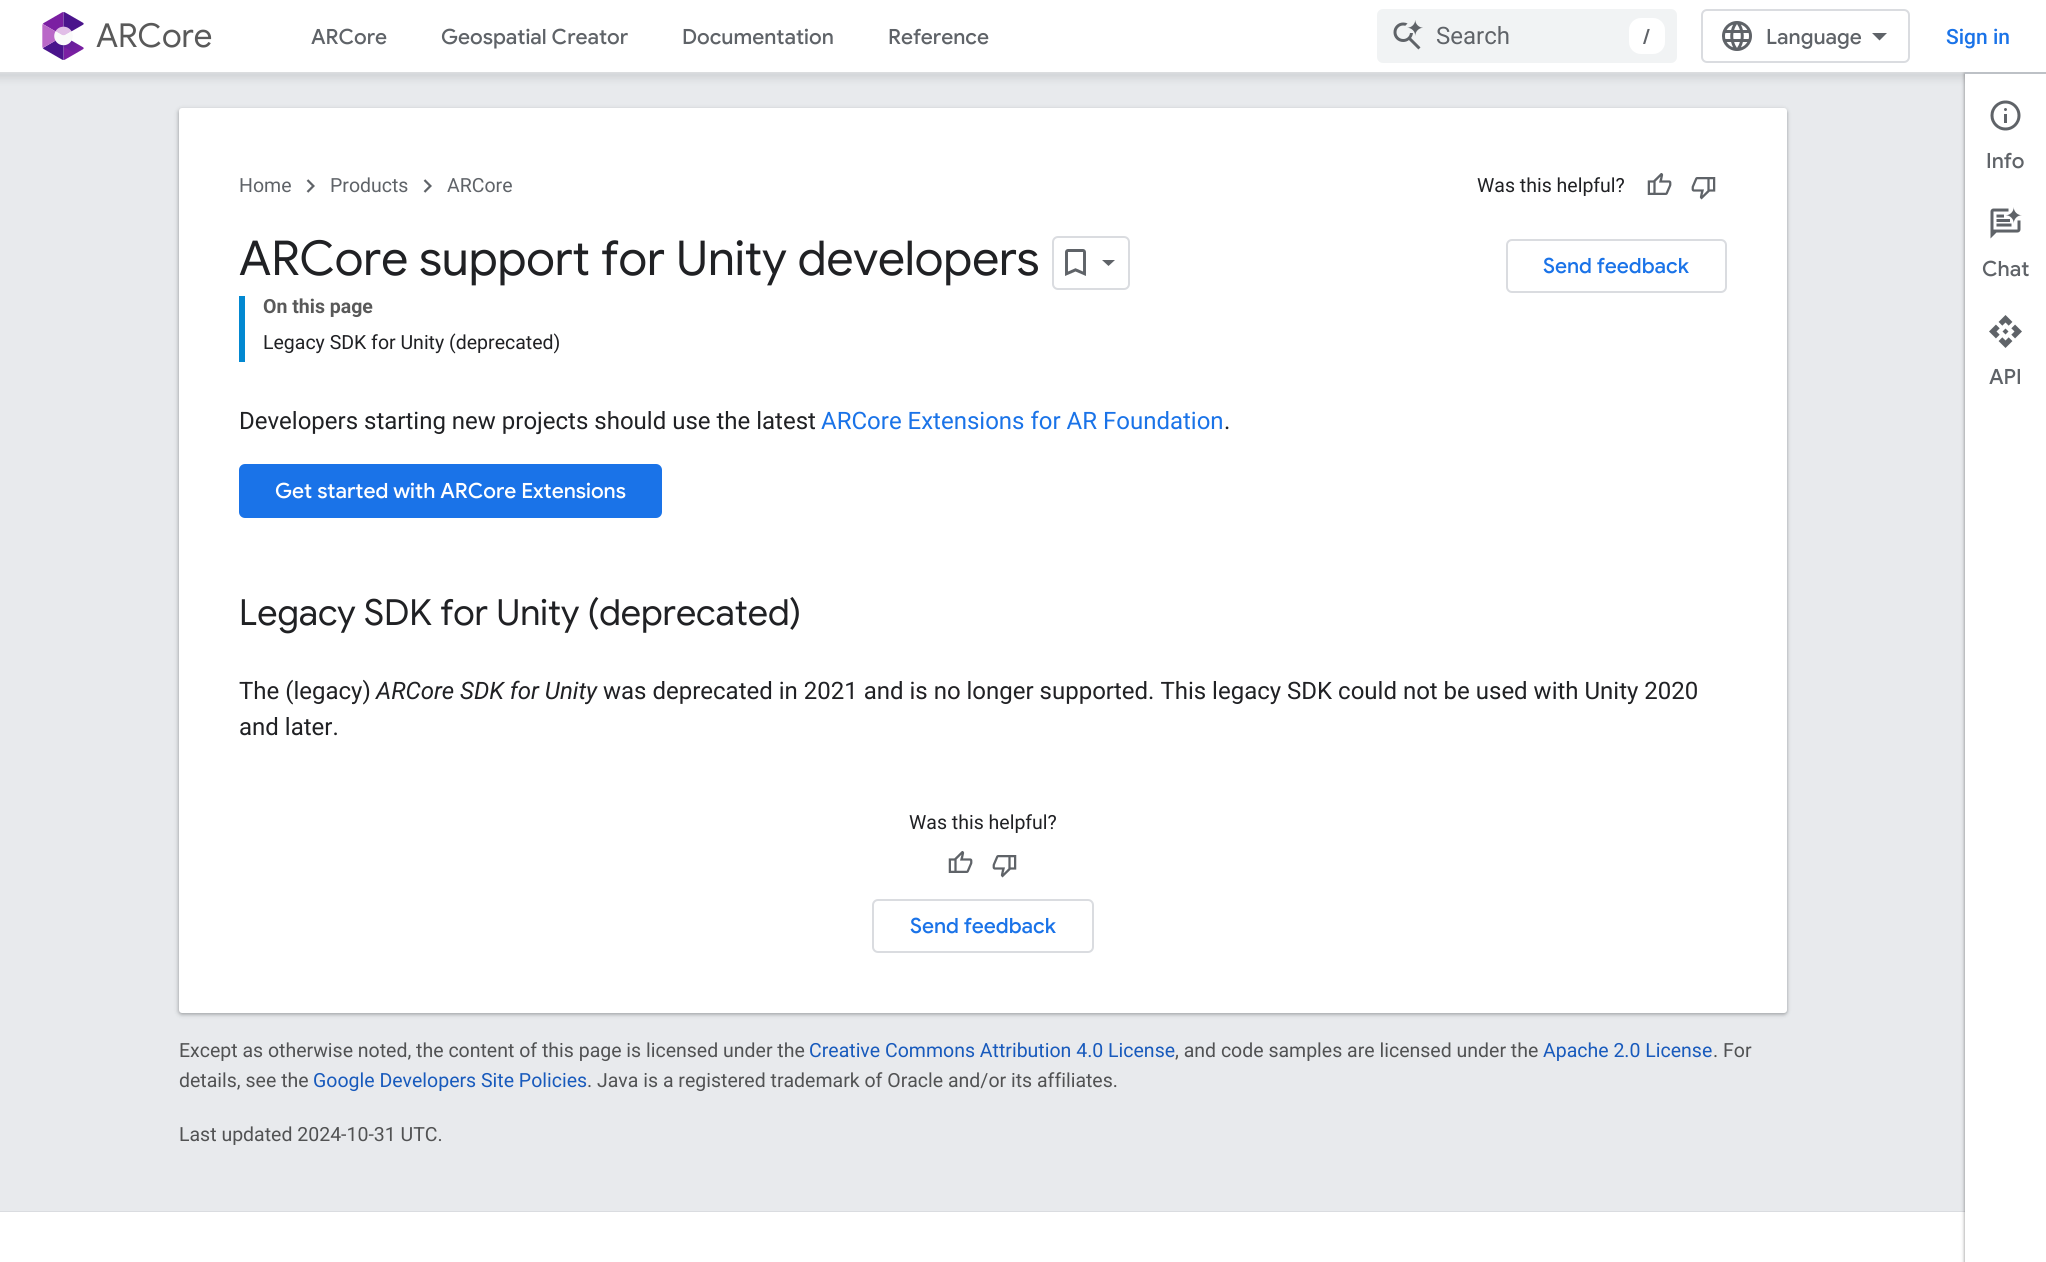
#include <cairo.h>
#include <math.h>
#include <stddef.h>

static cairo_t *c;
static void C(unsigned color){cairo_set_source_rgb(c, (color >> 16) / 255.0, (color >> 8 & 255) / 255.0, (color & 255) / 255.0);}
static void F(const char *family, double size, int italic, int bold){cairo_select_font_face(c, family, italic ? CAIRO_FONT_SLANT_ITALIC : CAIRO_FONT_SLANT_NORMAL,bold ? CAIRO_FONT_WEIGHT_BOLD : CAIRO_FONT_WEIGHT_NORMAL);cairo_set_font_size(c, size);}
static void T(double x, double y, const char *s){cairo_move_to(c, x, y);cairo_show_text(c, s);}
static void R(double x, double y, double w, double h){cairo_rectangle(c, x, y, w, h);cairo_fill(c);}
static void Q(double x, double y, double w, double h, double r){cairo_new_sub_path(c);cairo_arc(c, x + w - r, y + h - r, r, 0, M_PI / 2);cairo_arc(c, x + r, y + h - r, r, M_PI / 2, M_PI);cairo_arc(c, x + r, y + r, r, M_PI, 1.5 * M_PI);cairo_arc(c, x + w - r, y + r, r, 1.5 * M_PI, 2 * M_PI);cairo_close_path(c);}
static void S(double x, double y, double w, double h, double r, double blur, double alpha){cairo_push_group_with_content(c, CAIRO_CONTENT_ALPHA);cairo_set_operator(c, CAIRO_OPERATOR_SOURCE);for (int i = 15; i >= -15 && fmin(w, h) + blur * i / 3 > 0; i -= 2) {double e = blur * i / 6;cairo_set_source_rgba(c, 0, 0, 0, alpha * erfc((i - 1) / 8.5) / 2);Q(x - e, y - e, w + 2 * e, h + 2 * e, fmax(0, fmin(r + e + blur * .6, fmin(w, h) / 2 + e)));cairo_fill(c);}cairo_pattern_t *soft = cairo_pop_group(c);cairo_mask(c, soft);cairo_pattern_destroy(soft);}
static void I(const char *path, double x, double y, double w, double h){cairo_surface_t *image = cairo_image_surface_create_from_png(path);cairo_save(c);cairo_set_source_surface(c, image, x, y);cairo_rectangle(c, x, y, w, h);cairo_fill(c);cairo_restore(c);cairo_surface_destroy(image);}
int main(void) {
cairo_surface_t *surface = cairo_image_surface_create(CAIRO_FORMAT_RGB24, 2046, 1262);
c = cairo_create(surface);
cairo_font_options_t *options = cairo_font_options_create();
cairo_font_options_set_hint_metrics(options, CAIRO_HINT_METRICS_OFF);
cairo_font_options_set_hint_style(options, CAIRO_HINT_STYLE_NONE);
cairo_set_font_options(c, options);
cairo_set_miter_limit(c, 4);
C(0xe8eaed);
cairo_paint(c);
C(0x3c4043);
S(-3,72,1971,6,0,4.5,.15);
C(0xdadce0);
R(0,1211,1965,1);
C(0xffffff);
R(0,1212,1965,50);
C(0x000000);
S(1964,72,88,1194,0,2,.15);
S(1965,74,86,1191,0,1.5,.3);
C(0xffffff);
R(0,0,2046,72);
I("1.png",42,12,42,48);
F("Google Sans",33,0,0);
C(0x595959);
T(96,47,"ARCore");
F("Google Sans Medium",21,0,0);
C(0x5f6368);
T(311,44,"ARCore");
T(441,44,"Geospatial Creator");
T(682,44,"Documentation");
T(888,44,"Reference");
C(0xf1f3f4);
Q(1377,9,300,54,6);
cairo_fill(c);
I("2.png",1393,20,30,30);
F("Roboto",24,0,0);
C(0x5f6368);
T(1436,44,"Search");
C(0xffffff);
Q(1629,18,36,36,12);
cairo_fill(c);
F("Google Sans Medium",21,0,0);
C(0x5f6368);
T(1643,44,"/");
Q(1702,10,207,52,5);
C(0xdadce0);
cairo_stroke(c);
I("3.png",1722,21,30,30);
C(0x5f6368);
T(1766,44,"Language");
cairo_new_path(c);
cairo_move_to(c,1879.5,40.5);
cairo_line_to(c,1872,33);
cairo_line_to(c,1887,33);
cairo_close_path(c);
cairo_fill(c);
F("Roboto Medium",21,0,0);
C(0x1a73e8);
T(1946,44,"Sign in");
C(0x3c4043);
S(177,108,1611,908,5,2,.15);
S(179,110,1608,904,3,1.5,.3);
C(0xffffff);
Q(179,108,1608,905,3);
cairo_fill(c);
F("Roboto",19.5,0,0);
C(0x5f6368);
T(239,192,"Home");
I("4.png",306,179,9,14);
T(330,192,"Products");
I("4.png",423,179,9,14);
T(447,192,"ARCore");
C(0x202124);
T(1477,192,"Was this helpful?");
I("5.png",1647,173,25,22);
I("6.png",1691,177,25,23);
F("Google Sans",48,0,0);
T(239,275,"ARCore support for Unity developers");
Q(1053,237,76,52,5);
C(0xdadce0);
cairo_stroke(c);
I("7.png",1065,249,21,27);
C(0x5f6368);
cairo_new_path(c);
cairo_move_to(c,1102,260);
cairo_line_to(c,1115,260);
cairo_line_to(c,1108.5,266);
cairo_close_path(c);
cairo_fill(c);
Q(1507,240,219,52,5);
C(0xdadce0);
cairo_stroke(c);
F("Google Sans Medium",21,0,0);
C(0x1a73e8);
T(1543,273,"Send feedback");
C(0x0288d1);
R(239,296,6,66);
F("Roboto",19.5,0,1);
C(0x595959);
T(263,313,"On this page");
F("Roboto",19.5,0,0);
C(0x202124);
T(263,349,"Legacy SDK for Unity (deprecated)");
F("Roboto",24,0,0);
T(239,429,"Developers starting new projects should use the latest");
C(0x1a73e8);
T(821,429,"ARCore Extensions for AR Foundation");
C(0x202124);
T(1224,429,".");
C(0x1a73e8);
Q(239,464,423,54,6);
cairo_fill(c);
F("Google Sans Medium",21,0,0);
C(0xffffff);
T(275,498,"Get started with ARCore Extensions");
F("Google Sans",36,0,0);
C(0x202124);
T(239,625,"Legacy SDK for Unity (deprecated)");
F("Roboto",24,0,0);
T(239,699,"The (legacy)");
F("Roboto",24,1,0);
T(376,699,"ARCore SDK for Unity");
F("Roboto",24,0,0);
T(603,699,"was deprecated in 2021 and is no longer supported. This legacy SDK could not be used with Unity 2020");
T(239,735,"and later.");
F("Roboto",19.5,0,0);
T(909,829,"Was this helpful?");
I("5.png",948,851,25,22);
I("6.png",992,855,25,23);
Q(873,900,220,52,5);
C(0xdadce0);
cairo_stroke(c);
F("Google Sans Medium",21,0,0);
C(0x1a73e8);
T(910,933,"Send feedback");
F("Roboto",19.5,0,0);
C(0x515253);
T(179,1057,"Except as otherwise noted, the content of this page is licensed under the");
C(0x185abc);
T(809,1057,"Creative Commons Attribution 4.0 License");
C(0x515253);
T(1175,1057,", and code samples are licensed under the");
C(0x185abc);
T(1543,1057,"Apache 2.0 License");
C(0x515253);
T(1713,1057,". For");
T(179,1087,"details, see the");
C(0x185abc);
T(313,1087,"Google Developers Site Policies");
C(0x515253);
T(587,1087,". Java is a registered trademark of Oracle and/or its affiliates.");
T(179,1141,"Last updated 2024-10-31 UTC.");
C(0xffffff);
R(1965,74,81,1188);
C(0xbdc1c6);
R(1965,72,81,2);
I("8.png",1990,100,31,31);
F("Google Sans Medium",21,0,0);
C(0x5f6368);
T(1986,168,"Info");
I("9.png",1990,207,32,32);
T(1982,276,"Chat");
I("10.png",1989,315,33,33);
T(1989,384,"API");
cairo_surface_write_to_png(surface, "o.png");
cairo_font_options_destroy(options);
cairo_destroy(c);
cairo_surface_destroy(surface);
return 0;
}
